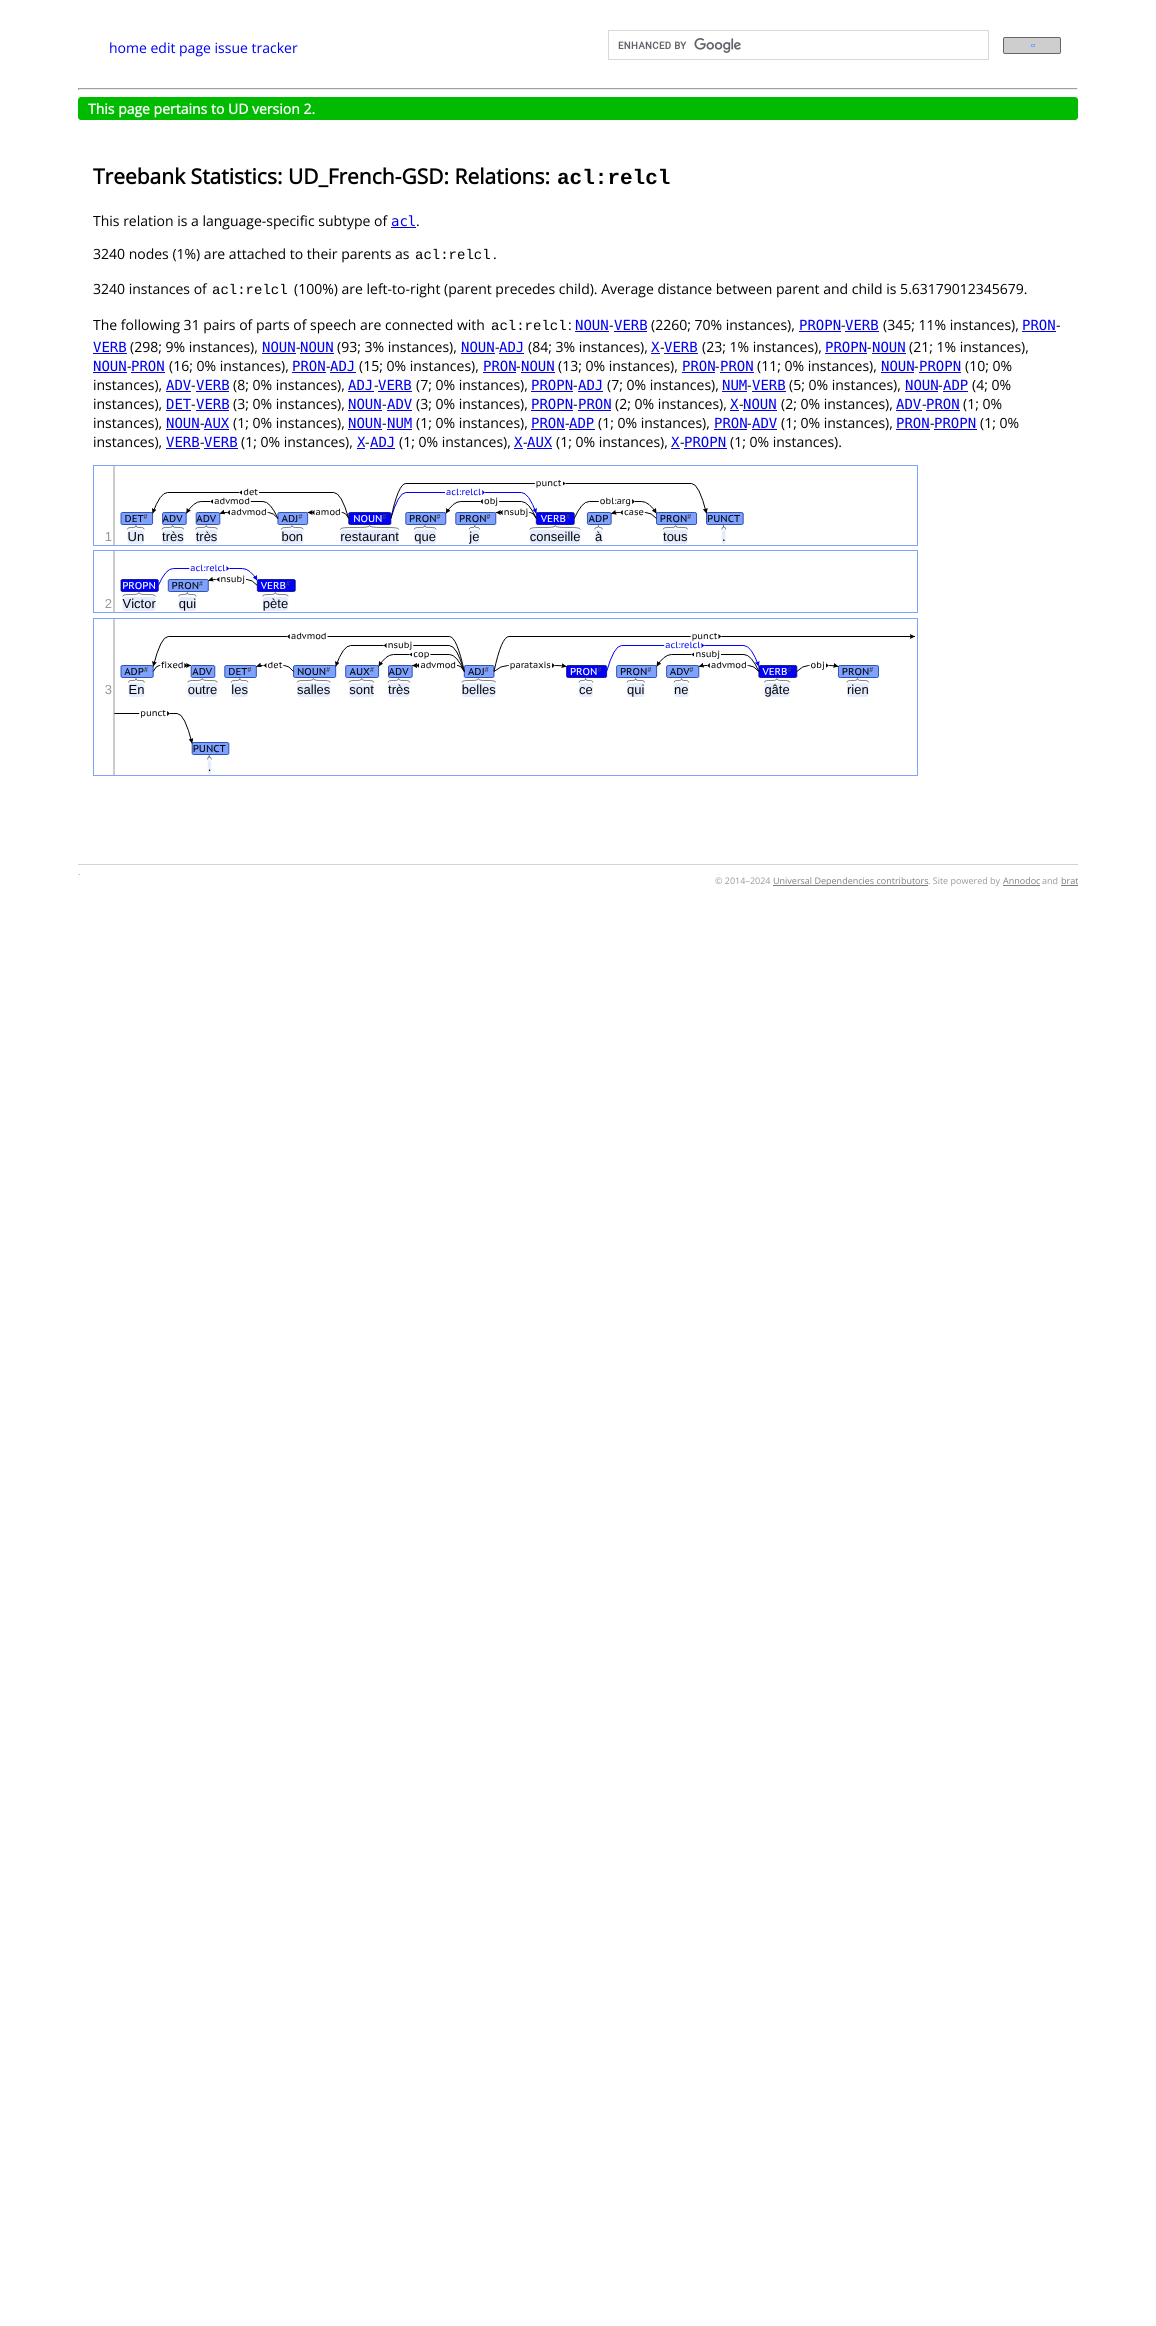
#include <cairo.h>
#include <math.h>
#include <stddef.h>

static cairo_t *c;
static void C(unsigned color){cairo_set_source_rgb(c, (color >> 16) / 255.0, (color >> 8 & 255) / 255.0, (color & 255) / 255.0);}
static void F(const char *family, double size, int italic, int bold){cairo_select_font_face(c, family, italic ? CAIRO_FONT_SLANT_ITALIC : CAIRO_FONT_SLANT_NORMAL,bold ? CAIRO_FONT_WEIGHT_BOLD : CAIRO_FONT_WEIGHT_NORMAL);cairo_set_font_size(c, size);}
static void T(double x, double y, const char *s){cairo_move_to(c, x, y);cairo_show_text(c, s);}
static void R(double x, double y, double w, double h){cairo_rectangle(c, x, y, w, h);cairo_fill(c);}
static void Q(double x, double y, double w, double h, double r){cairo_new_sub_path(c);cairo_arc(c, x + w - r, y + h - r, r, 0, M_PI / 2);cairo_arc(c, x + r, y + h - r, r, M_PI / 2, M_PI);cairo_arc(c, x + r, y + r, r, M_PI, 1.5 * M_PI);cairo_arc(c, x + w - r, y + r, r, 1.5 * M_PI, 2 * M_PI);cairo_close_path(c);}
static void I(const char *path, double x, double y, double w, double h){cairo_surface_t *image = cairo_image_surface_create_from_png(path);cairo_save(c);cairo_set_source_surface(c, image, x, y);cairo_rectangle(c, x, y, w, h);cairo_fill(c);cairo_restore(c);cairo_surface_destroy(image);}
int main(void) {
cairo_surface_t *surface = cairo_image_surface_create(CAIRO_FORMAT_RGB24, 1156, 2326);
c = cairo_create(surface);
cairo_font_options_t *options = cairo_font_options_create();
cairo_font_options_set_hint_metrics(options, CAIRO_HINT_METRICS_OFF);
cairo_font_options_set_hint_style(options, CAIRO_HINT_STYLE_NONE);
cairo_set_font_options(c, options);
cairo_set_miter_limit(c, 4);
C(0xffffff);
cairo_paint(c);
F("Open Sans",14,0,0);
C(0x0000ee);
T(109,53,"home edit page issue tracker");
cairo_rectangle(c,608.5,30.5,380,29);
C(0xd9d9d9);
cairo_set_line_width(c,1);
cairo_stroke(c);
I("1.png",618,38,123,15);
C(0xcecece);
Q(1003.5,37.5,57,16,1.5);
cairo_fill_preserve(c);
C(0x666666);
cairo_stroke(c);
cairo_rectangle(c,1031.5,44.5,3,2);
C(0x7fa2ff);
cairo_stroke(c);
C(0xd5d5d5);
R(1032,45,2,1);
C(0x9f9f9f);
R(78,88,1000,1);
C(0xeeeeee);
R(1077,88,1,2);
R(78,89,1000,1);
C(0x9f9f9f);
R(78,88,1,2);
C(0x00bb00);
Q(78,97,1000,23,3);
cairo_fill(c);
F("Open Sans",14,0,1);
C(0xffffff);
T(88,114,"This page pertains to UD version 2.");
F("Open Sans",21,0,1);
C(0x000000);
T(93,184,"Treebank Statistics: UD_French-GSD: Relations:");
F("Liberation Mono",21,0,1);
T(557,184,"acl:relcl");
F("Open Sans",14,0,0);
T(93,226,"This relation is a language-specific subtype of");
F("DejaVu Sans Mono",14,0,0);
C(0x0000ee);
T(391,226,"acl");
R(391,227,25,1);
F("Open Sans",14,0,0);
C(0x000000);
T(416,226,".");
T(93,259,"3240 nodes (1%) are attached to their parents as");
F("Liberation Mono",14,0,0);
T(415,259,"acl:relcl");
F("Open Sans",14,0,0);
T(493,259,".");
T(93,294,"3240 instances of");
F("Liberation Mono",14,0,0);
T(212,294,"acl:relcl");
F("Open Sans",14,0,0);
T(294,294,"(100%) are left-to-right (parent precedes child). Average distance between parent and child is 5.63179012345679.");
T(93,330,"The following 31 pairs of parts of speech are connected with");
F("Liberation Mono",14,0,0);
T(491,330,"acl:relcl");
F("Open Sans",14,0,0);
T(568,330,":");
F("DejaVu Sans Mono",14,0,0);
C(0x0000ee);
T(575,330,"NOUN");
R(575,331,34,1);
F("Open Sans",14,0,0);
C(0x000000);
T(609,330,"-");
F("DejaVu Sans Mono",14,0,0);
C(0x0000ee);
T(614,330,"VERB");
R(614,331,33,1);
F("Open Sans",14,0,0);
C(0x000000);
T(651,330,"(2260; 70% instances),");
F("DejaVu Sans Mono",14,0,0);
C(0x0000ee);
T(799,330,"PROPN");
R(799,331,42,1);
F("Open Sans",14,0,0);
C(0x000000);
T(841,330,"-");
F("DejaVu Sans Mono",14,0,0);
C(0x0000ee);
T(845,330,"VERB");
R(845,331,34,1);
F("Open Sans",14,0,0);
C(0x000000);
T(883,330,"(345; 11% instances),");
F("DejaVu Sans Mono",14,0,0);
C(0x0000ee);
T(1022,330,"PRON");
R(1022,331,34,1);
F("Open Sans",14,0,0);
C(0x000000);
T(1056,330,"-");
F("DejaVu Sans Mono",14,0,0);
C(0x0000ee);
T(93,352,"VERB");
R(93,353,34,1);
F("Open Sans",14,0,0);
C(0x000000);
T(130,352,"(298; 9% instances),");
F("DejaVu Sans Mono",14,0,0);
C(0x0000ee);
T(262,352,"NOUN");
R(262,353,34,1);
F("Open Sans",14,0,0);
C(0x000000);
T(296,352,"-");
F("DejaVu Sans Mono",14,0,0);
C(0x0000ee);
T(300,352,"NOUN");
R(300,353,34,1);
F("Open Sans",14,0,0);
C(0x000000);
T(337,352,"(93; 3% instances),");
F("DejaVu Sans Mono",14,0,0);
C(0x0000ee);
T(461,352,"NOUN");
R(461,353,34,1);
F("Open Sans",14,0,0);
C(0x000000);
T(495,352,"-");
F("DejaVu Sans Mono",14,0,0);
C(0x0000ee);
T(499,352,"ADJ");
R(499,353,25,1);
F("Open Sans",14,0,0);
C(0x000000);
T(528,352,"(84; 3% instances),");
F("DejaVu Sans Mono",14,0,0);
C(0x0000ee);
T(651,352,"X");
R(651,353,9,1);
F("Open Sans",14,0,0);
C(0x000000);
T(660,352,"-");
F("DejaVu Sans Mono",14,0,0);
C(0x0000ee);
T(664,352,"VERB");
R(664,353,34,1);
F("Open Sans",14,0,0);
C(0x000000);
T(702,352,"(23; 1% instances),");
F("DejaVu Sans Mono",14,0,0);
C(0x0000ee);
T(825,352,"PROPN");
R(825,353,42,1);
F("Open Sans",14,0,0);
C(0x000000);
T(867,352,"-");
F("DejaVu Sans Mono",14,0,0);
C(0x0000ee);
T(872,352,"NOUN");
R(872,353,34,1);
F("Open Sans",14,0,0);
C(0x000000);
T(909,352,"(21; 1% instances),");
F("DejaVu Sans Mono",14,0,0);
C(0x0000ee);
T(93,371,"NOUN");
R(93,372,34,1);
F("Open Sans",14,0,0);
C(0x000000);
T(127,371,"-");
F("DejaVu Sans Mono",14,0,0);
C(0x0000ee);
T(131,371,"PRON");
R(131,372,34,1);
F("Open Sans",14,0,0);
C(0x000000);
T(169,371,"(16; 0% instances),");
F("DejaVu Sans Mono",14,0,0);
C(0x0000ee);
T(292,371,"PRON");
R(292,372,34,1);
F("Open Sans",14,0,0);
C(0x000000);
T(326,371,"-");
F("DejaVu Sans Mono",14,0,0);
C(0x0000ee);
T(330,371,"ADJ");
R(330,372,26,1);
F("Open Sans",14,0,0);
C(0x000000);
T(359,371,"(15; 0% instances),");
F("DejaVu Sans Mono",14,0,0);
C(0x0000ee);
T(483,371,"PRON");
R(483,372,33,1);
F("Open Sans",14,0,0);
C(0x000000);
T(516,371,"-");
F("DejaVu Sans Mono",14,0,0);
C(0x0000ee);
T(521,371,"NOUN");
R(521,372,34,1);
F("Open Sans",14,0,0);
C(0x000000);
T(558,371,"(13; 0% instances),");
F("DejaVu Sans Mono",14,0,0);
C(0x0000ee);
T(682,371,"PRON");
R(682,372,33,1);
F("Open Sans",14,0,0);
C(0x000000);
T(715,371,"-");
F("DejaVu Sans Mono",14,0,0);
C(0x0000ee);
T(720,371,"PRON");
R(720,372,34,1);
F("Open Sans",14,0,0);
C(0x000000);
T(757,371,"(11; 0% instances),");
F("DejaVu Sans Mono",14,0,0);
C(0x0000ee);
T(881,371,"NOUN");
R(881,372,33,1);
F("Open Sans",14,0,0);
C(0x000000);
T(914,371,"-");
F("DejaVu Sans Mono",14,0,0);
C(0x0000ee);
T(919,371,"PROPN");
R(919,372,42,1);
F("Open Sans",14,0,0);
C(0x000000);
T(965,371,"(10; 0%");
T(93,390,"instances),");
F("DejaVu Sans Mono",14,0,0);
C(0x0000ee);
T(166,390,"ADV");
R(166,391,25,1);
F("Open Sans",14,0,0);
C(0x000000);
T(191,390,"-");
F("DejaVu Sans Mono",14,0,0);
C(0x0000ee);
T(196,390,"VERB");
R(196,391,33,1);
F("Open Sans",14,0,0);
C(0x000000);
T(233,390,"(8; 0% instances),");
F("DejaVu Sans Mono",14,0,0);
C(0x0000ee);
T(348,390,"ADJ");
R(348,391,26,1);
F("Open Sans",14,0,0);
C(0x000000);
T(374,390,"-");
F("DejaVu Sans Mono",14,0,0);
C(0x0000ee);
T(378,390,"VERB");
R(378,391,34,1);
F("Open Sans",14,0,0);
C(0x000000);
T(416,390,"(7; 0% instances),");
F("DejaVu Sans Mono",14,0,0);
C(0x0000ee);
T(531,390,"PROPN");
R(531,391,42,1);
F("Open Sans",14,0,0);
C(0x000000);
T(573,390,"-");
F("DejaVu Sans Mono",14,0,0);
C(0x0000ee);
T(578,390,"ADJ");
R(578,391,25,1);
F("Open Sans",14,0,0);
C(0x000000);
T(607,390,"(7; 0% instances),");
F("DejaVu Sans Mono",14,0,0);
C(0x0000ee);
T(722,390,"NUM");
R(722,391,25,1);
F("Open Sans",14,0,0);
C(0x000000);
T(747,390,"-");
F("DejaVu Sans Mono",14,0,0);
C(0x0000ee);
T(752,390,"VERB");
R(752,391,34,1);
F("Open Sans",14,0,0);
C(0x000000);
T(789,390,"(5; 0% instances),");
F("DejaVu Sans Mono",14,0,0);
C(0x0000ee);
T(905,390,"NOUN");
R(905,391,33,1);
F("Open Sans",14,0,0);
C(0x000000);
T(938,390,"-");
F("DejaVu Sans Mono",14,0,0);
C(0x0000ee);
T(943,390,"ADP");
R(943,391,25,1);
F("Open Sans",14,0,0);
C(0x000000);
T(972,390,"(4; 0%");
T(93,409,"instances),");
F("DejaVu Sans Mono",14,0,0);
C(0x0000ee);
T(166,409,"DET");
R(166,410,25,1);
F("Open Sans",14,0,0);
C(0x000000);
T(191,409,"-");
F("DejaVu Sans Mono",14,0,0);
C(0x0000ee);
T(196,409,"VERB");
R(196,410,33,1);
F("Open Sans",14,0,0);
C(0x000000);
T(233,409,"(3; 0% instances),");
F("DejaVu Sans Mono",14,0,0);
C(0x0000ee);
T(348,409,"NOUN");
R(348,410,34,1);
F("Open Sans",14,0,0);
C(0x000000);
T(382,409,"-");
F("DejaVu Sans Mono",14,0,0);
C(0x0000ee);
T(387,409,"ADV");
R(387,410,25,1);
F("Open Sans",14,0,0);
C(0x000000);
T(416,409,"(3; 0% instances),");
F("DejaVu Sans Mono",14,0,0);
C(0x0000ee);
T(531,409,"PROPN");
R(531,410,42,1);
F("Open Sans",14,0,0);
C(0x000000);
T(573,409,"-");
F("DejaVu Sans Mono",14,0,0);
C(0x0000ee);
T(578,409,"PRON");
R(578,410,33,1);
F("Open Sans",14,0,0);
C(0x000000);
T(615,409,"(2; 0% instances),");
F("DejaVu Sans Mono",14,0,0);
C(0x0000ee);
T(730,409,"X");
R(730,410,9,1);
F("Open Sans",14,0,0);
C(0x000000);
T(739,409,"-");
F("DejaVu Sans Mono",14,0,0);
C(0x0000ee);
T(743,409,"NOUN");
R(743,410,34,1);
F("Open Sans",14,0,0);
C(0x000000);
T(781,409,"(2; 0% instances),");
F("DejaVu Sans Mono",14,0,0);
C(0x0000ee);
T(896,409,"ADV");
R(896,410,26,1);
F("Open Sans",14,0,0);
C(0x000000);
T(922,409,"-");
F("DejaVu Sans Mono",14,0,0);
C(0x0000ee);
T(926,409,"PRON");
R(926,410,34,1);
F("Open Sans",14,0,0);
C(0x000000);
T(963,409,"(1; 0%");
T(93,428,"instances),");
F("DejaVu Sans Mono",14,0,0);
C(0x0000ee);
T(166,428,"NOUN");
R(166,429,34,1);
F("Open Sans",14,0,0);
C(0x000000);
T(200,428,"-");
F("DejaVu Sans Mono",14,0,0);
C(0x0000ee);
T(204,428,"AUX");
R(204,429,25,1);
F("Open Sans",14,0,0);
C(0x000000);
T(233,428,"(1; 0% instances),");
F("DejaVu Sans Mono",14,0,0);
C(0x0000ee);
T(348,428,"NOUN");
R(348,429,34,1);
F("Open Sans",14,0,0);
C(0x000000);
T(382,428,"-");
F("DejaVu Sans Mono",14,0,0);
C(0x0000ee);
T(387,428,"NUM");
R(387,429,25,1);
F("Open Sans",14,0,0);
C(0x000000);
T(416,428,"(1; 0% instances),");
F("DejaVu Sans Mono",14,0,0);
C(0x0000ee);
T(531,428,"PRON");
R(531,429,34,1);
F("Open Sans",14,0,0);
C(0x000000);
T(565,428,"-");
F("DejaVu Sans Mono",14,0,0);
C(0x0000ee);
T(569,428,"ADP");
R(569,429,26,1);
F("Open Sans",14,0,0);
C(0x000000);
T(598,428,"(1; 0% instances),");
F("DejaVu Sans Mono",14,0,0);
C(0x0000ee);
T(714,428,"PRON");
R(714,429,33,1);
F("Open Sans",14,0,0);
C(0x000000);
T(747,428,"-");
F("DejaVu Sans Mono",14,0,0);
C(0x0000ee);
T(752,428,"ADV");
R(752,429,25,1);
F("Open Sans",14,0,0);
C(0x000000);
T(781,428,"(1; 0% instances),");
F("DejaVu Sans Mono",14,0,0);
C(0x0000ee);
T(896,428,"PRON");
R(896,429,34,1);
F("Open Sans",14,0,0);
C(0x000000);
T(930,428,"-");
F("DejaVu Sans Mono",14,0,0);
C(0x0000ee);
T(934,428,"PROPN");
R(934,429,43,1);
F("Open Sans",14,0,0);
C(0x000000);
T(980,428,"(1; 0%");
T(93,447,"instances),");
F("DejaVu Sans Mono",14,0,0);
C(0x0000ee);
T(166,447,"VERB");
R(166,448,34,1);
F("Open Sans",14,0,0);
C(0x000000);
T(200,447,"-");
F("DejaVu Sans Mono",14,0,0);
C(0x0000ee);
T(204,447,"VERB");
R(204,448,34,1);
F("Open Sans",14,0,0);
C(0x000000);
T(241,447,"(1; 0% instances),");
F("DejaVu Sans Mono",14,0,0);
C(0x0000ee);
T(357,447,"X");
R(357,448,8,1);
F("Open Sans",14,0,0);
C(0x000000);
T(365,447,"-");
F("DejaVu Sans Mono",14,0,0);
C(0x0000ee);
T(370,447,"ADJ");
R(370,448,25,1);
F("Open Sans",14,0,0);
C(0x000000);
T(399,447,"(1; 0% instances),");
F("DejaVu Sans Mono",14,0,0);
C(0x0000ee);
T(514,447,"X");
R(514,448,9,1);
F("Open Sans",14,0,0);
C(0x000000);
T(523,447,"-");
F("DejaVu Sans Mono",14,0,0);
C(0x0000ee);
T(527,447,"AUX");
R(527,448,25,1);
F("Open Sans",14,0,0);
C(0x000000);
T(556,447,"(1; 0% instances),");
F("DejaVu Sans Mono",14,0,0);
C(0x0000ee);
T(671,447,"X");
R(671,448,9,1);
F("Open Sans",14,0,0);
C(0x000000);
T(680,447,"-");
F("DejaVu Sans Mono",14,0,0);
C(0x0000ee);
T(684,447,"PROPN");
R(684,448,43,1);
F("Open Sans",14,0,0);
C(0x000000);
T(730,447,"(1; 0% instances).");
cairo_rectangle(c,93.5,465.5,824,80);
C(0x7fa2ff);
cairo_stroke(c);
I("2.png",105,466,639,79);
cairo_rectangle(c,93.5,550.5,824,62);
cairo_stroke(c);
I("3.png",105,551,191,61);
cairo_rectangle(c,93.5,618.5,824,157);
cairo_stroke(c);
I("4.png",105,619,810,156);
C(0xd3d3d3);
R(78,864,1000,1);
F("Open Sans",9,0,0);
C(0x999999);
T(78,875,".");
T(715,884,"© 2014–2024");
C(0x808080);
R(773,885,155,1);
T(773,884,"Universal Dependencies contributors");
C(0x999999);
T(928,884,". Site powered by");
C(0x808080);
T(1003,884,"Annodoc");
R(1003,885,37,1);
C(0x999999);
T(1042,884,"and");
C(0x808080);
T(1061,884,"brat");
R(1061,885,17,1);
cairo_surface_write_to_png(surface, "o.png");
cairo_font_options_destroy(options);
cairo_destroy(c);
cairo_surface_destroy(surface);
return 0;
}
